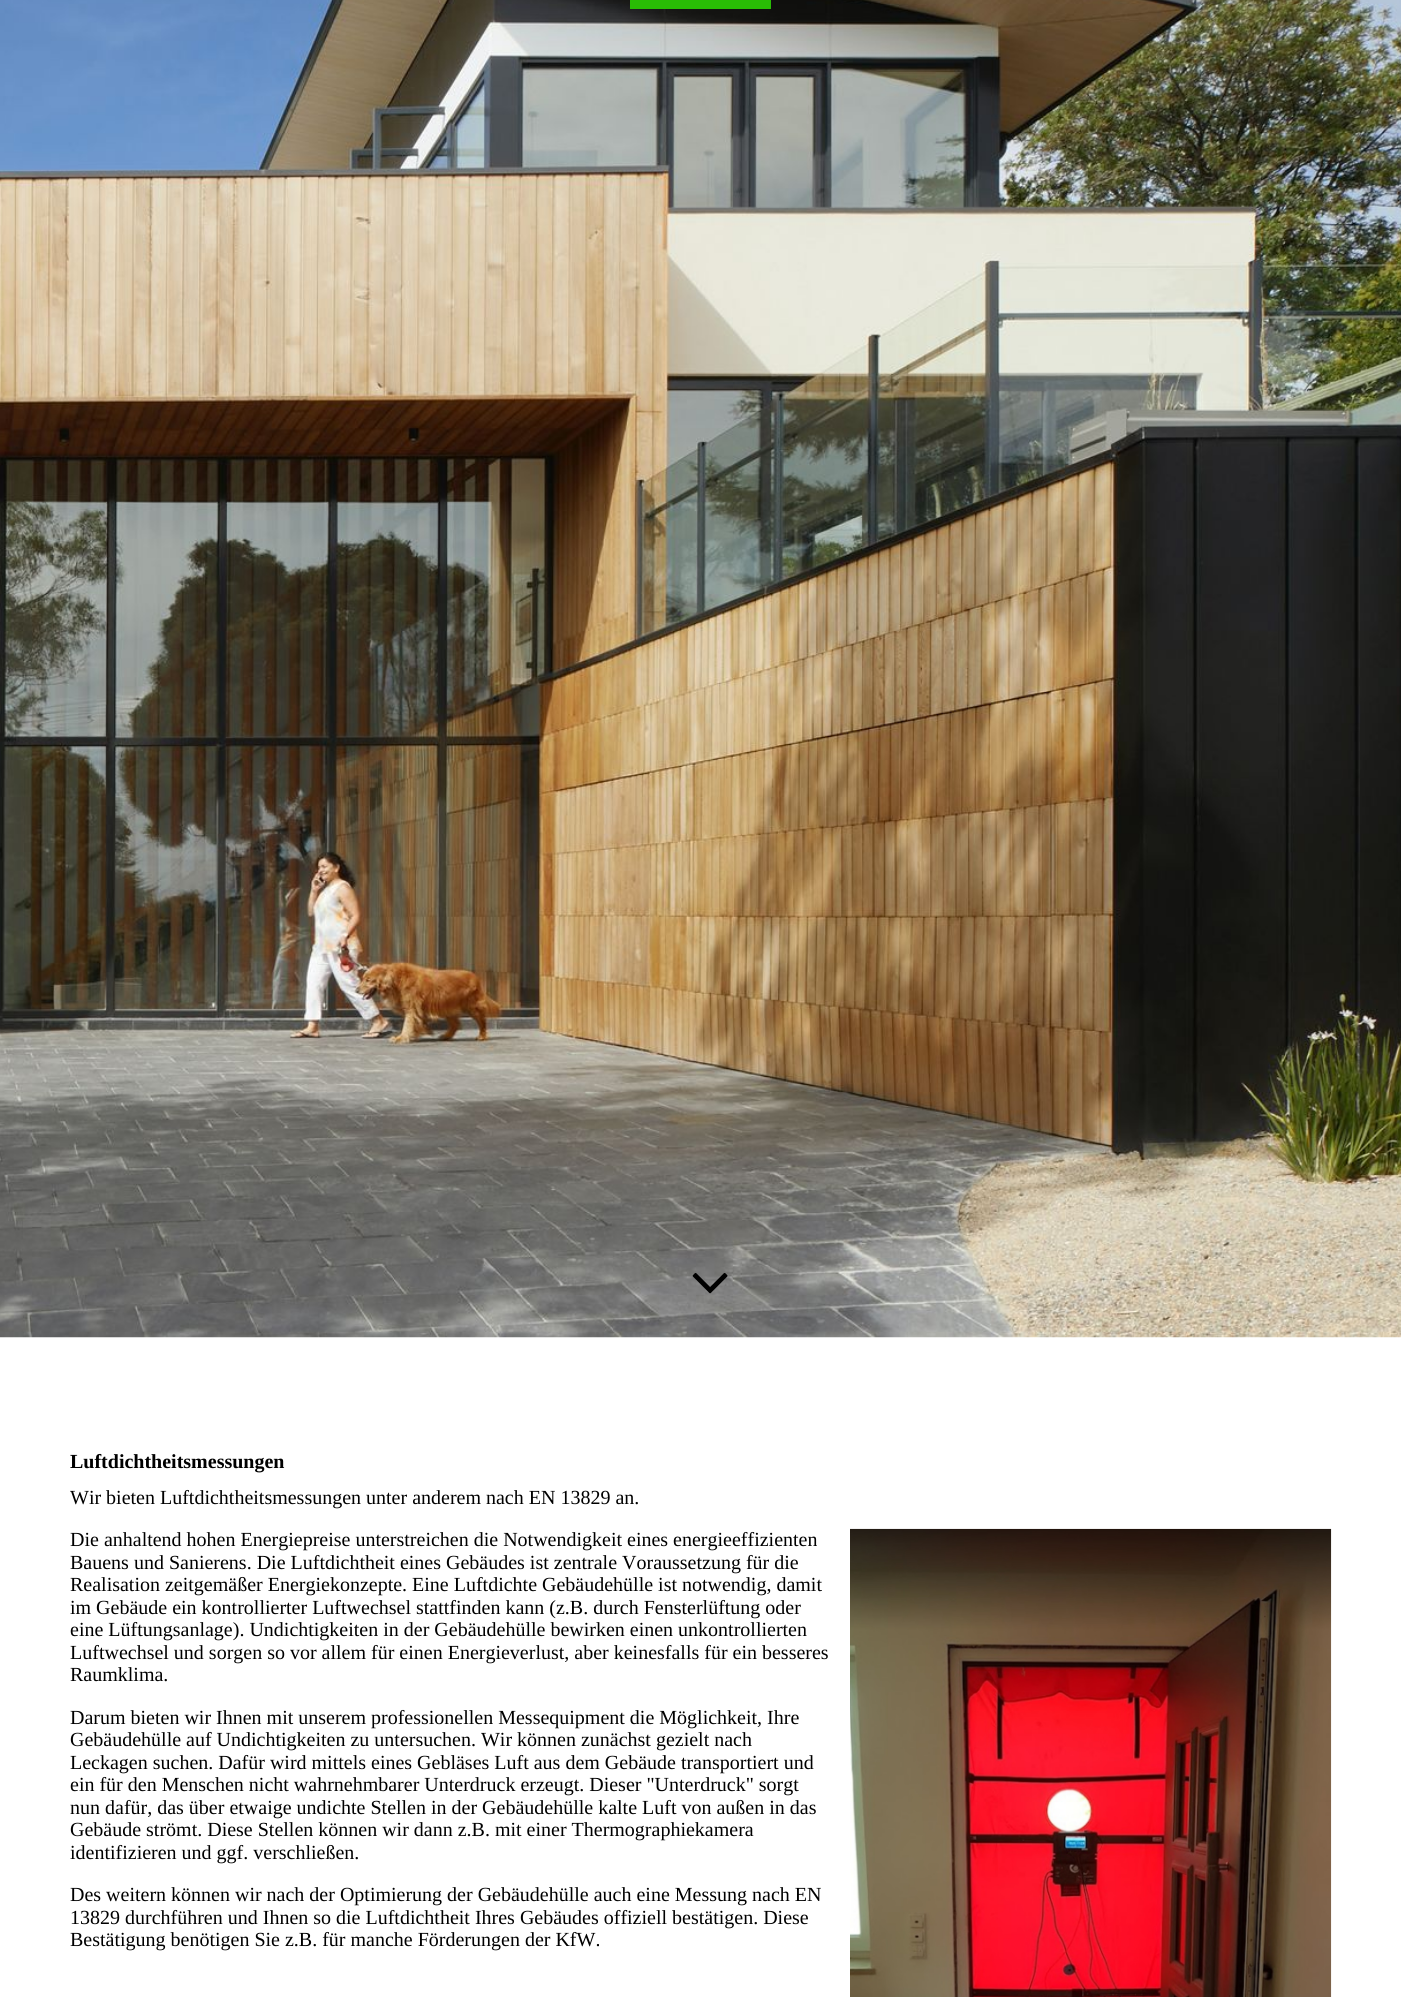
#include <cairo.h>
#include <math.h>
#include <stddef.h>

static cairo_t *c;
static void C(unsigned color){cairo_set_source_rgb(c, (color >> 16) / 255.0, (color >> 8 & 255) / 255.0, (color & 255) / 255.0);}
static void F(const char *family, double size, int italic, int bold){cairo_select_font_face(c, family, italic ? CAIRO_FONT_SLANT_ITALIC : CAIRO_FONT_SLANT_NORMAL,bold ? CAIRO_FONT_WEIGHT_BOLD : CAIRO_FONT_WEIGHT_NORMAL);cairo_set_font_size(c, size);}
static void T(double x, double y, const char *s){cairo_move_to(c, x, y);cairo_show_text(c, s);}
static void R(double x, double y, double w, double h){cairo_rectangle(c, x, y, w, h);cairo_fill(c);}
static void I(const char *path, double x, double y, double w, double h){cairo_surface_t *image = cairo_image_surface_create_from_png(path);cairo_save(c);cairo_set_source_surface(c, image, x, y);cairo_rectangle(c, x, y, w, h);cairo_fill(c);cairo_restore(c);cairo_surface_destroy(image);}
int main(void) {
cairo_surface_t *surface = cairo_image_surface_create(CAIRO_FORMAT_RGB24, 1401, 1997);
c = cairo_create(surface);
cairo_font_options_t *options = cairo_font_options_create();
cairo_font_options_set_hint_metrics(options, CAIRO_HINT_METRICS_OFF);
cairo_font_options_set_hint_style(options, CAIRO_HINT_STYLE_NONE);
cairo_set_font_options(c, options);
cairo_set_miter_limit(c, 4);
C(0xffffff);
cairo_paint(c);
I("1.png",0,0,1401,1338);
C(0x29bd05);
R(630,0,141,9);
I("2.png",692,1273,36,21);
F("Liberation Serif",20,0,1);
C(0x000000);
T(70,1468,"Luftdichtheitsmessungen");
F("Liberation Serif",20,0,0);
T(70,1504,"Wir bieten Luftdichtheitsmessungen unter anderem nach EN 13829 an.");
T(70,1546,"Die anhaltend hohen Energiepreise unterstreichen die Notwendigkeit eines energieeffizienten");
T(70,1569,"Bauens und Sanierens. Die Luftdichtheit eines Gebäudes ist zentrale Voraussetzung für die");
T(70,1591,"Realisation zeitgemäßer Energiekonzepte. Eine Luftdichte Gebäudehülle ist notwendig, damit");
T(70,1614,"im Gebäude ein kontrollierter Luftwechsel stattfinden kann (z.B. durch Fensterlüftung oder");
T(70,1636,"eine Lüftungsanlage). Undichtigkeiten in der Gebäudehülle bewirken einen unkontrollierten");
T(70,1659,"Luftwechsel und sorgen so vor allem für einen Energieverlust, aber keinesfalls für ein besseres");
T(70,1681,"Raumklima.");
I("3.png",850,1528,482,469);
T(70,1724,"Darum bieten wir Ihnen mit unserem professionellen Messequipment die Möglichkeit, Ihre");
T(70,1746,"Gebäudehülle auf Undichtigkeiten zu untersuchen. Wir können zunächst gezielt nach");
T(70,1769,"Leckagen suchen. Dafür wird mittels eines Gebläses Luft aus dem Gebäude transportiert und");
T(70,1791,"ein für den Menschen nicht wahrnehmbarer Unterdruck erzeugt. Dieser \"Unterdruck\" sorgt");
T(70,1814,"nun dafür, das über etwaige undichte Stellen in der Gebäudehülle kalte Luft von außen in das");
T(70,1836,"Gebäude strömt. Diese Stellen können wir dann z.B. mit einer Thermographiekamera");
T(70,1859,"identifizieren und ggf. verschließen.");
T(70,1901,"Des weitern können wir nach der Optimierung der Gebäudehülle auch eine Messung nach EN");
T(70,1924,"13829 durchführen und Ihnen so die Luftdichtheit Ihres Gebäudes offiziell bestätigen. Diese");
T(70,1946,"Bestätigung benötigen Sie z.B. für manche Förderungen der KfW.");
cairo_surface_write_to_png(surface, "o.png");
cairo_font_options_destroy(options);
cairo_destroy(c);
cairo_surface_destroy(surface);
return 0;
}
